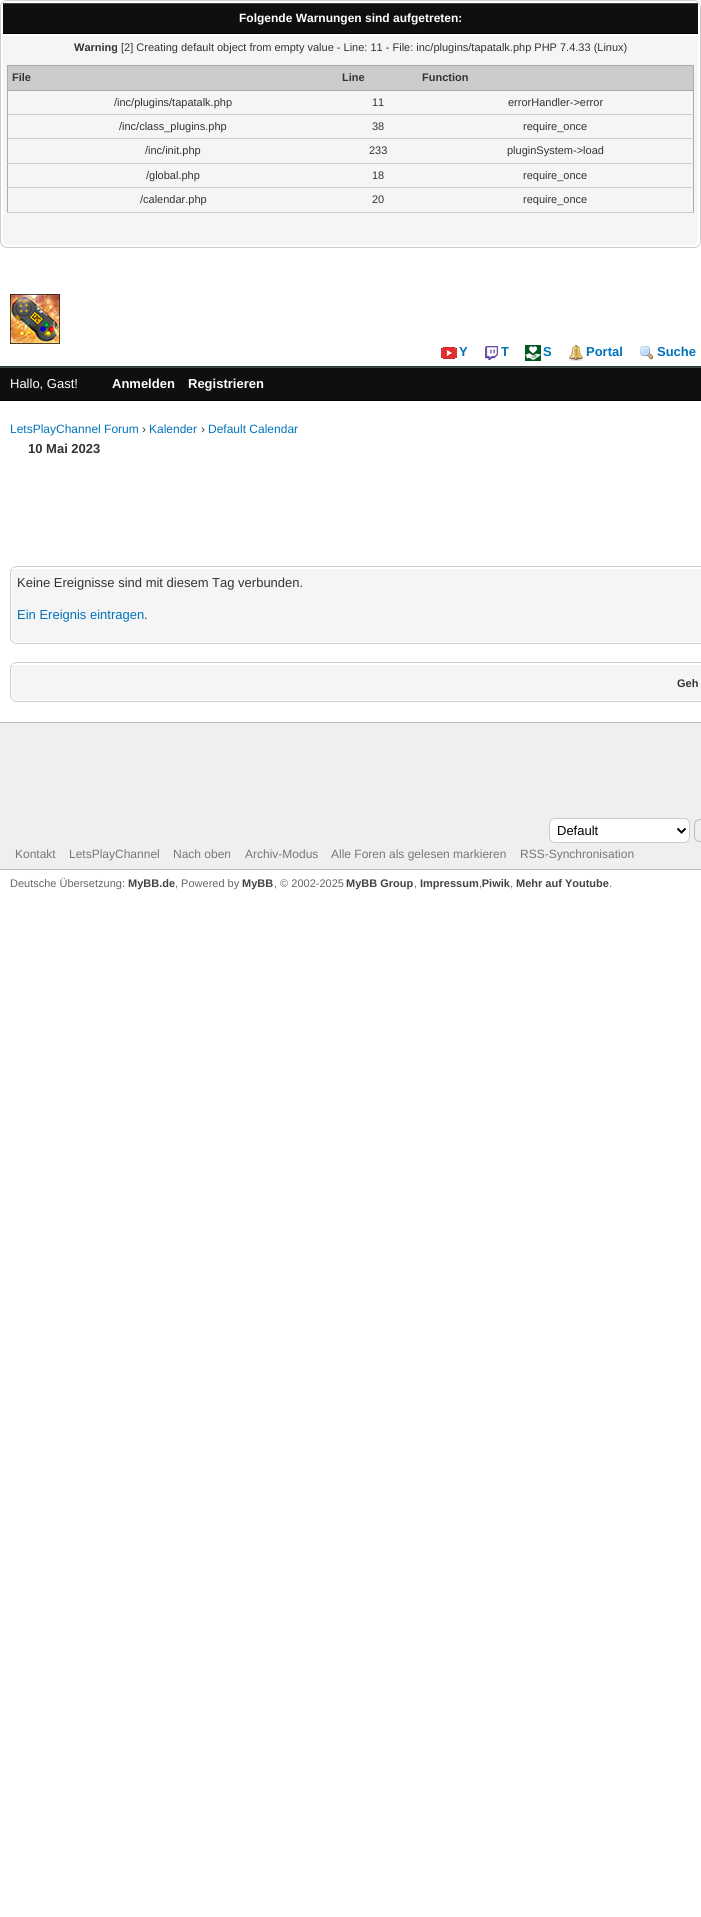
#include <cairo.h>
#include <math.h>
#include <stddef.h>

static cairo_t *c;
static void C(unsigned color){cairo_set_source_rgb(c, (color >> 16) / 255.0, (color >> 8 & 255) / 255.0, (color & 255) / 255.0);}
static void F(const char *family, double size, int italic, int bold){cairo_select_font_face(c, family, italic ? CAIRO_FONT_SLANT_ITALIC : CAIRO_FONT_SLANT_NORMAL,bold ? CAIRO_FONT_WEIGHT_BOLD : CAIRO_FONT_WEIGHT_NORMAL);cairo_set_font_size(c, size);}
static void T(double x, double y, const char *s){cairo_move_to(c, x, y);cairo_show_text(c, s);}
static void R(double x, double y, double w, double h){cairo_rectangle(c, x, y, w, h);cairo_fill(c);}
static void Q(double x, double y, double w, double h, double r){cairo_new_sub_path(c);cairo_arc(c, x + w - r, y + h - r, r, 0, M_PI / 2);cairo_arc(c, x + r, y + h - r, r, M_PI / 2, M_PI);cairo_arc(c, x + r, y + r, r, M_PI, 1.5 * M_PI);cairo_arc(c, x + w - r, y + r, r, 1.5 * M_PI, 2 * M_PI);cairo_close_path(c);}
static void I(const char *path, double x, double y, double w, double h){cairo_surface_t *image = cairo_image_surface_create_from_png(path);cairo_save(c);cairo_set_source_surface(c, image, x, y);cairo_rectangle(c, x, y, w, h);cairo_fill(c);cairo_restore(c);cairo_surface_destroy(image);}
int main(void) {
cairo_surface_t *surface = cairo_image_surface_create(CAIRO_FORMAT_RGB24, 701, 1917);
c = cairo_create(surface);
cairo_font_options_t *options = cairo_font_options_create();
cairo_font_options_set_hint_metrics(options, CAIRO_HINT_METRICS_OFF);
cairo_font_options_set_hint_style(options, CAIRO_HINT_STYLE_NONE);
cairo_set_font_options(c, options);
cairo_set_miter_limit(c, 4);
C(0xffffff);
cairo_paint(c);
Q(.5,.5,700,247,6.5);
C(0xcccccc);
cairo_set_line_width(c,1);
cairo_stroke(c);
C(0x0f0f0f);
R(3,4,695,29);
C(0x444444);
R(3,3,695,1);
C(0x000000);
R(3,33,695,1);
F("Liberation Sans",12,0,1);
C(0xffffff);
T(239,22,"Folgende Warnungen sind aufgetreten:");
C(0xf5f5f5);
cairo_new_path(c);
cairo_move_to(c,3,35);
cairo_line_to(c,698,35);
cairo_line_to(c,698,239);
cairo_curve_to(c,698,242.5,695.5,245,692,245);
cairo_line_to(c,9,245);
cairo_curve_to(c,5.5,245,3,242.5,3,239);
cairo_close_path(c);
cairo_fill(c);
C(0xffffff);
R(3,35,695,1);
F("Liberation Sans",11,0,1);
C(0x333333);
T(74,51,"Warning");
F("Liberation Sans",11,0,0);
T(121,51,"[2] Creating default object from empty value - Line: 11 - File: inc/plugins/tapatalk.php PHP 7.4.33 (Linux)");
C(0xaaaaaa);
R(7,65,687,1);
R(693,65,1,148);
R(7,65,1,148);
C(0xcccccc);
R(8,66,685,24);
F("Liberation Sans",11,0,1);
C(0x333333);
T(12,81,"File");
T(342,81,"Line");
C(0xaaaaaa);
R(7,90,687,1);
C(0x333333);
T(422,81,"Function");
F("Liberation Sans",11,0,0);
T(114,106,"/inc/plugins/tapatalk.php");
T(372,106,"11");
C(0xcccccc);
R(7,114,687,1);
C(0x333333);
T(508,106,"errorHandler->error");
T(119,130,"/inc/class_plugins.php");
T(372,130,"38");
C(0xcccccc);
R(7,138,687,1);
C(0x333333);
T(523,130,"require_once");
T(145,154,"/inc/init.php");
T(369,154,"233");
C(0xcccccc);
R(7,163,687,1);
C(0x333333);
T(507,154,"pluginSystem->load");
T(146,179,"/global.php");
T(372,179,"18");
C(0xcccccc);
R(7,187,687,1);
C(0x333333);
T(523,179,"require_once");
T(140,203,"/calendar.php");
T(372,203,"20");
C(0xcccccc);
R(7,212,687,1);
C(0x333333);
T(523,203,"require_once");
C(0x263c30);
R(0,366,701,1);
I("1.png",10,294,50,50);
I("2.png",441,347,16,12);
F("Liberation Sans",13,0,1);
C(0x0072bc);
T(459,356,"Y");
I("3.png",485,346,13,14);
T(501,356,"T");
I("4.png",525,345,16,16);
T(543,356,"S");
I("5.png",569,345,14,16);
T(586,356,"Portal");
I("6.png",640,346,13,14);
T(657,356,"Suche");
C(0x0f0f0f);
R(0,368,701,32);
C(0x444444);
R(0,367,701,1);
C(0x000000);
R(0,400,701,1);
F("Liberation Sans",13,0,0);
C(0xffffff);
T(10,388,"Hallo, Gast!");
F("Liberation Sans",13,0,1);
T(112,388,"Anmelden");
T(188,388,"Registrieren");
F("Liberation Sans",12,0,0);
C(0x0072bc);
T(10,433,"LetsPlayChannel Forum");
C(0x333333);
T(142,433,"›");
C(0x0072bc);
T(149,433,"Kalender");
C(0x333333);
T(201,433,"›");
C(0x0072bc);
T(208,433,"Default Calendar");
F("Liberation Sans",13,0,1);
C(0x333333);
T(28,453,"10 Mai 2023");
Q(10.5,566.5,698,77,6.5);
C(0xcccccc);
cairo_stroke(c);
C(0xf5f5f5);
cairo_new_path(c);
cairo_move_to(c,12,568);
cairo_line_to(c,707,568);
cairo_line_to(c,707,636);
cairo_curve_to(c,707,639.5,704.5,642,701,642);
cairo_line_to(c,18,642);
cairo_curve_to(c,14.5,642,12,639.5,12,636);
cairo_close_path(c);
cairo_fill(c);
C(0xffffff);
R(12,568,689,1);
F("Liberation Sans",13,0,0);
C(0x333333);
T(17,587,"Keine Ereignisse sind mit diesem Tag verbunden.");
C(0x0072bc);
T(17,619,"Ein Ereignis eintragen");
C(0x333333);
T(144,619,".");
Q(10.5,662.5,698,39,6.5);
C(0xcccccc);
cairo_stroke(c);
C(0xf5f5f5);
cairo_new_path(c);
cairo_move_to(c,12,664);
cairo_line_to(c,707,664);
cairo_line_to(c,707,694);
cairo_curve_to(c,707,697.5,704.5,700,701,700);
cairo_line_to(c,18,700);
cairo_curve_to(c,14.5,700,12,697.5,12,694);
cairo_close_path(c);
cairo_fill(c);
C(0xffffff);
R(12,664,689,1);
F("Liberation Sans",11,0,1);
C(0x333333);
T(677,687,"Geh");
C(0xefefef);
R(0,723,701,146);
C(0xbbbbbb);
R(0,722,701,1);
R(0,869,701,1);
C(0xffffff);
Q(549.5,818.5,140,24,5.5);
cairo_fill_preserve(c);
C(0xcccccc);
cairo_stroke(c);
cairo_new_path(c);
cairo_move_to(c,677.5,828.5);
cairo_line_to(c,681.5,832.5);
cairo_line_to(c,685.5,828.5);
C(0x000000);
cairo_set_line_width(c,2);
cairo_stroke(c);
F("Liberation Sans",13,0,0);
T(557,835,"Default");
Q(694.5,819.5,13,22,5.5);
C(0xbbbbbb);
cairo_set_line_width(c,1);
cairo_stroke(c);
F("Liberation Sans",12,0,0);
C(0x777777);
T(15,858,"Kontakt");
T(69,858,"LetsPlayChannel");
T(173,858,"Nach oben");
T(245,858,"Archiv-Modus");
T(331,858,"Alle Foren als gelesen markieren");
T(520,858,"RSS-Synchronisation");
F("Liberation Sans",11,0,0);
C(0x666666);
T(10,887,"Deutsche Übersetzung:");
F("Liberation Sans",11,0,1);
C(0x444444);
T(128,887,"MyBB.de");
F("Liberation Sans",11,0,0);
C(0x666666);
T(175,887,", Powered by");
F("Liberation Sans",11,0,1);
C(0x444444);
T(242,887,"MyBB");
F("Liberation Sans",11,0,0);
C(0x666666);
T(274,887,", © 2002-2025");
F("Liberation Sans",11,0,1);
C(0x444444);
T(346,887,"MyBB Group");
F("Liberation Sans",11,0,0);
C(0x666666);
T(414,887,",");
F("Liberation Sans",11,0,1);
C(0x444444);
T(420,887,"Impressum Piwik");
T(516,887,"Mehr auf Youtube");
F("Liberation Sans",11,0,0);
C(0x666666);
T(479,887,",");
T(510,887,",");
T(609,887,".");
cairo_surface_write_to_png(surface, "o.png");
cairo_font_options_destroy(options);
cairo_destroy(c);
cairo_surface_destroy(surface);
return 0;
}
